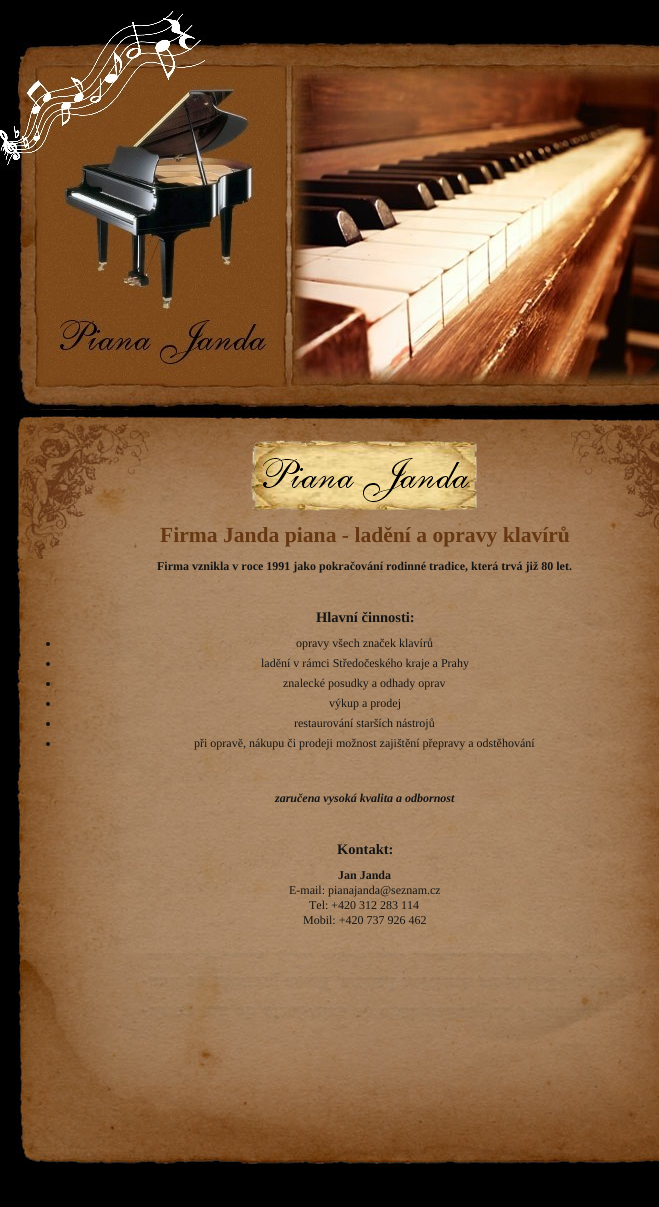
#include <cairo.h>
#include <math.h>
#include <stddef.h>

static cairo_t *c;
static void C(unsigned color){cairo_set_source_rgb(c, (color >> 16) / 255.0, (color >> 8 & 255) / 255.0, (color & 255) / 255.0);}
static void F(const char *family, double size, int italic, int bold){cairo_select_font_face(c, family, italic ? CAIRO_FONT_SLANT_ITALIC : CAIRO_FONT_SLANT_NORMAL,bold ? CAIRO_FONT_WEIGHT_BOLD : CAIRO_FONT_WEIGHT_NORMAL);cairo_set_font_size(c, size);}
static void T(double x, double y, const char *s){cairo_move_to(c, x, y);cairo_show_text(c, s);}
static void I(const char *path, double x, double y, double w, double h){cairo_surface_t *image = cairo_image_surface_create_from_png(path);cairo_save(c);cairo_set_source_surface(c, image, x, y);cairo_rectangle(c, x, y, w, h);cairo_fill(c);cairo_restore(c);cairo_surface_destroy(image);}
int main(void) {
cairo_surface_t *surface = cairo_image_surface_create(CAIRO_FORMAT_RGB24, 659, 1207);
c = cairo_create(surface);
cairo_font_options_t *options = cairo_font_options_create();
cairo_font_options_set_hint_metrics(options, CAIRO_HINT_METRICS_OFF);
cairo_font_options_set_hint_style(options, CAIRO_HINT_STYLE_NONE);
cairo_set_font_options(c, options);
cairo_set_miter_limit(c, 4);
C(0x000000);
cairo_paint(c);
I("1.png",0,10,659,400);
I("2.png",16,414,643,145);
I("3.png",250,439,230,74);
F("Liberation Serif",21.6,0,1);
C(0x673711);
T(160,542,"Firma Janda piana - ladění a opravy klavírů");
I("4.png",16,559,643,394);
F("Liberation Serif",12,0,1);
C(0x141414);
T(157,570,"Firma vznikla v roce 1991 jako pokračování rodinné tradice, která trvá již 80 let.");
F("Liberation Serif",14.5,0,1);
T(316,622,"Hlavní činnosti:");
cairo_new_path(c);
cairo_arc(c,48,644,2,0,2 * M_PI);
cairo_fill(c);
F("Liberation Serif",12,0,0);
T(296,647,"opravy všech značek klavírů");
cairo_new_path(c);
cairo_arc(c,48,664,2,0,2 * M_PI);
cairo_fill(c);
T(261,667,"ladění v rámci Středočeského kraje a Prahy");
cairo_new_path(c);
cairo_arc(c,48,684,2,0,2 * M_PI);
cairo_fill(c);
T(283,687,"znalecké posudky a odhady oprav");
cairo_new_path(c);
cairo_arc(c,48,704,2,0,2 * M_PI);
cairo_fill(c);
T(329,707,"výkup a prodej");
cairo_new_path(c);
cairo_arc(c,48,724,2,0,2 * M_PI);
cairo_fill(c);
T(294,727,"restaurování starších nástrojů");
cairo_new_path(c);
cairo_arc(c,48,744,2,0,2 * M_PI);
cairo_fill(c);
T(194,747,"při opravě, nákupu či prodeji možnost zajištění přepravy a odstěhování");
F("Liberation Serif",12,1,1);
T(275,802,"zaručena vysoká kvalita a odbornost");
F("Liberation Serif",14.5,0,1);
T(337,854,"Kontakt:");
F("Liberation Serif",12,0,1);
T(338,879,"Jan Janda");
F("Liberation Serif",12,0,0);
T(289,894,"E-mail: pianajanda@seznam.cz");
T(309,909,"Tel: +420 312 283 114");
T(303,924,"Mobil: +420 737 926 462");
I("5.png",16,953,643,211);
cairo_surface_write_to_png(surface, "o.png");
cairo_font_options_destroy(options);
cairo_destroy(c);
cairo_surface_destroy(surface);
return 0;
}
